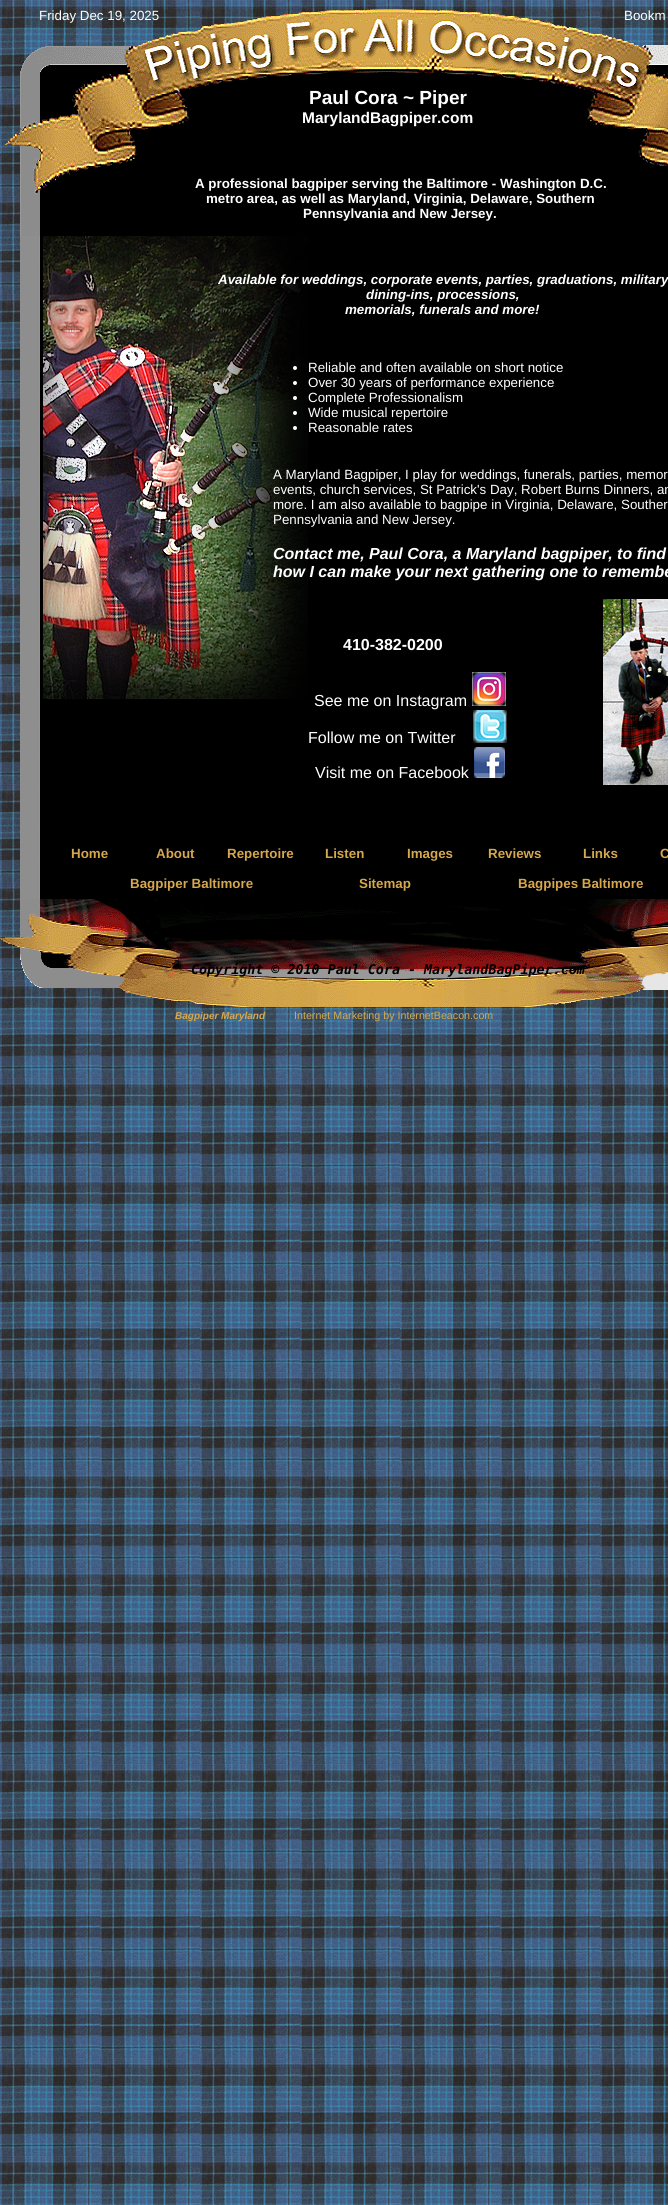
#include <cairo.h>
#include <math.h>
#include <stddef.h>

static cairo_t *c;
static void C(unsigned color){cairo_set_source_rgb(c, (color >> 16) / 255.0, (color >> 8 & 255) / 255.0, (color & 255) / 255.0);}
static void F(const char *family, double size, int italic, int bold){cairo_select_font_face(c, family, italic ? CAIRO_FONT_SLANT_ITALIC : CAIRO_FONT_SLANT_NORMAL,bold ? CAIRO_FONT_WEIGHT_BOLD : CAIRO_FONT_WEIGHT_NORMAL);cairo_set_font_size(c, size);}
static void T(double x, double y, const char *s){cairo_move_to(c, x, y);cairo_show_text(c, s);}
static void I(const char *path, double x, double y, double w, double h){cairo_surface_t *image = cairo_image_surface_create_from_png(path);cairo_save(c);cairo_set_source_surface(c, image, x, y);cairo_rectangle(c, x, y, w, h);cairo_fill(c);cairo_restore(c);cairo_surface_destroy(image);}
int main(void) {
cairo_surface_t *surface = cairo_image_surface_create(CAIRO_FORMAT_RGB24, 668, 2205);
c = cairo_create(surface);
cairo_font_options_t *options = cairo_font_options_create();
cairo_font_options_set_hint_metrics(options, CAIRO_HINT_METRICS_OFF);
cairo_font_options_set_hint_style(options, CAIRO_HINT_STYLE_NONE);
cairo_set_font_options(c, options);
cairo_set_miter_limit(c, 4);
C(0xffffff);
cairo_paint(c);
I("1.png",0,0,668,2205);
I("2.png",4,9,664,227);
F("Liberation Sans",13.35,0,0);
C(0xffffff);
T(39,20,"Friday Dec 19, 2025");
T(624,20,"Bookm");
F("Liberation Sans",19,0,1);
T(309,104,"Paul Cora ~ Piper");
F("Liberation Sans",15.5,0,1);
T(302,123,"MarylandBagpiper");
T(437,123,".com");
F("Liberation Sans",13.35,0,1);
T(195,188,"A professional bagpiper serving the Baltimore - Washington D.C.");
T(206,203,"metro area, as well as Maryland, Virginia, Delaware, Southern");
T(303,218,"Pennsylvania and New Jersey.");
I("3.png",20,236,648,567);
I("4.png",43,236,265,464);
F("Liberation Sans",13.35,1,1);
T(218,284,"Available for weddings, corporate events, parties, graduations, military");
T(366,299,"dining-ins, processions,");
T(345,314,"memorials, funerals and more!");
cairo_new_path(c);
cairo_arc(c,295,368,2,0,2 * M_PI);
cairo_fill(c);
F("Liberation Sans",13.35,0,0);
T(308,372,"Reliable and often available on short notice");
cairo_new_path(c);
cairo_arc(c,295,383,2,0,2 * M_PI);
cairo_fill(c);
T(308,387,"Over 30 years of performance experience");
cairo_new_path(c);
cairo_arc(c,295,398,2,0,2 * M_PI);
cairo_fill(c);
T(308,402,"Complete Professionalism");
cairo_new_path(c);
cairo_arc(c,295,413,2,0,2 * M_PI);
cairo_fill(c);
T(308,417,"Wide musical repertoire");
cairo_new_path(c);
cairo_arc(c,295,428,2,0,2 * M_PI);
cairo_fill(c);
T(308,432,"Reasonable rates");
T(273,479,"A Maryland Bagpiper, I play for weddings, funerals, parties, memor");
T(273,494,"events, church services, St Patrick's Day, Robert Burns Dinners, an");
T(273,509,"more. I am also available to bagpipe in Virginia, Delaware, Souther");
T(273,524,"Pennsylvania and New Jersey.");
F("Liberation Sans",16,1,1);
T(273,559,"Contact me, Paul Cora, a Maryland bagpiper, to find");
T(273,577,"how I can make your next gathering one to remembe");
F("Liberation Sans",16,0,1);
T(343,650,"410-382-0200");
I("5.png",603,599,65,186);
F("Liberation Sans",16,0,0);
T(314,706,"See me on Instagram");
I("6.png",472,672,34,34);
T(308,743,"Follow me on Twitter");
I("7.png",473,710,34,33);
T(315,778,"Visit me on Facebook");
I("8.png",474,747,31,31);
I("9.png",20,803,648,96);
F("Liberation Sans",13.35,0,1);
C(0xd6a74c);
T(71,858,"Home");
T(156,858,"About");
T(227,858,"Repertoire");
T(325,858,"Listen");
T(407,858,"Images");
T(488,858,"Reviews");
T(583,858,"Links");
T(660,858,"C");
T(130,888,"Bagpiper Baltimore");
T(359,888,"Sitemap");
T(518,888,"Bagpipes Baltimore");
I("10.png",0,899,668,108);
F("DejaVu Sans Mono",13.35,1,1);
C(0x000000);
T(191,974,"Copyright © 2010 Paul Cora - MarylandBagPiper.com");
F("Liberation Sans",10,1,1);
C(0xd6a74c);
T(175,1019,"Bagpiper Maryland");
F("Liberation Sans",10.7,0,0);
T(294,1019,"Internet Marketing by InternetBeacon.com");
cairo_surface_write_to_png(surface, "o.png");
cairo_font_options_destroy(options);
cairo_destroy(c);
cairo_surface_destroy(surface);
return 0;
}
